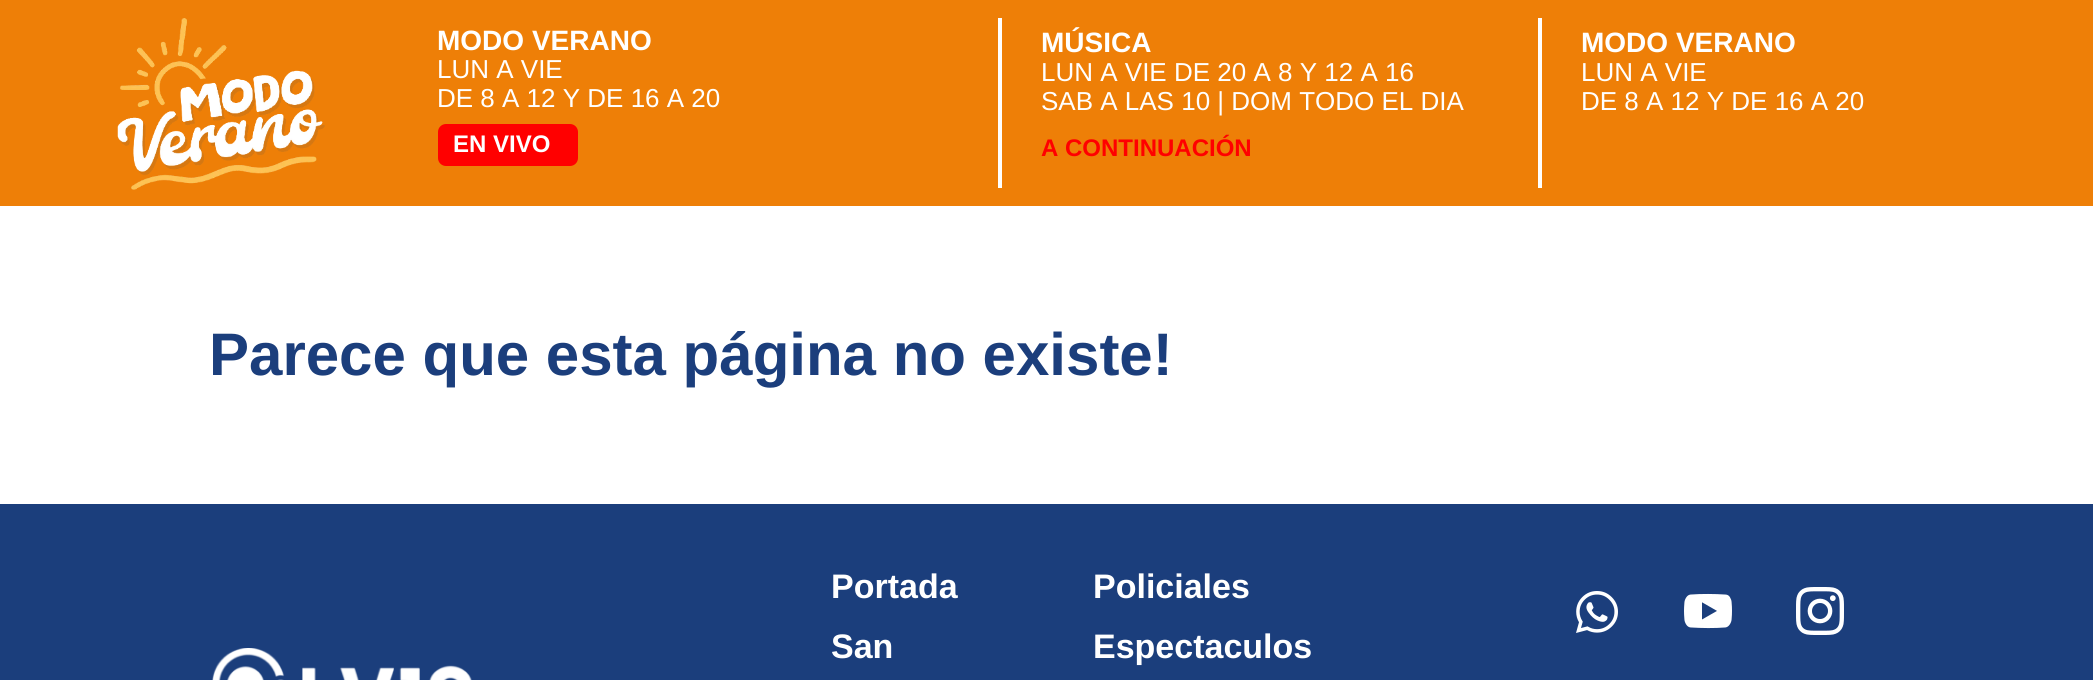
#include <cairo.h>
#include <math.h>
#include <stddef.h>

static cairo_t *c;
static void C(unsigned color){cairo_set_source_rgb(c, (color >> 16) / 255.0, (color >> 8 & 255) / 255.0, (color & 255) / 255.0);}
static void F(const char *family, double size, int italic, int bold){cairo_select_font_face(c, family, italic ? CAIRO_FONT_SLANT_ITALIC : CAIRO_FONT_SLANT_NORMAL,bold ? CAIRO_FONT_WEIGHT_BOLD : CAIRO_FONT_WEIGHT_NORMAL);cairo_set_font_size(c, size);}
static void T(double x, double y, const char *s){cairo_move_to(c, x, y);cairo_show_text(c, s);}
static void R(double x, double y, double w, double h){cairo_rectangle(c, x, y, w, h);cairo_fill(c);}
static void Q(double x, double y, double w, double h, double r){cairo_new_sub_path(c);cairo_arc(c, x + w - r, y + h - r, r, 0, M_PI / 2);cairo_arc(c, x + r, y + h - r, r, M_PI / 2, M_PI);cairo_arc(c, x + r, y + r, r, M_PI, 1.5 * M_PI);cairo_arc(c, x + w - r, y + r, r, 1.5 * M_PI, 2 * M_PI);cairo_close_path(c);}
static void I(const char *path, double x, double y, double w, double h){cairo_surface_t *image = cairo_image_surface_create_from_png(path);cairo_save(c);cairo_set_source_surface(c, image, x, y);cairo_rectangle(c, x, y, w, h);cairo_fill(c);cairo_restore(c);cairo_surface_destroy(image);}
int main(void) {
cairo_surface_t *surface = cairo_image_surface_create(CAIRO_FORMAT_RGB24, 2093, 680);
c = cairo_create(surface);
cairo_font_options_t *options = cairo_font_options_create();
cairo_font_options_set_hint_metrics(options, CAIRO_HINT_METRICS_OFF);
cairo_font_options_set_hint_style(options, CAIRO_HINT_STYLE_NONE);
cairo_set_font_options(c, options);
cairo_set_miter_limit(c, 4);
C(0xffffff);
cairo_paint(c);
C(0xee7f07);
R(0,0,2093,206);
I("1.png",117,18,208,172);
F("Liberation Sans",28,0,1);
C(0xffffff);
T(437,50,"MODO VERANO");
F("Liberation Sans",26,0,0);
T(437,78,"LUN A VIE");
T(437,107,"DE 8 A 12 Y DE 16 A 20");
C(0xff0000);
Q(438,124,140,42,8);
cairo_fill(c);
F("Liberation Sans",24,0,1);
C(0xffffff);
T(453,152,"EN VIVO");
R(998,18,4,170);
F("Liberation Sans",28,0,1);
T(1041,52,"MÚSICA");
F("Liberation Sans",26,0,0);
T(1041,81,"LUN A VIE DE 20 A 8 Y 12 A 16");
T(1041,110,"SAB A LAS 10 | DOM TODO EL DIA");
F("Liberation Sans",24,0,1);
C(0xff0000);
T(1041,156,"A CONTINUACIÓN");
C(0xffffff);
R(1538,18,4,170);
F("Liberation Sans",28,0,1);
T(1581,52,"MODO VERANO");
F("Liberation Sans",26,0,0);
T(1581,81,"LUN A VIE");
T(1581,110,"DE 8 A 12 Y DE 16 A 20");
F("Liberation Sans",60,0,1);
C(0x1b3e7c);
T(209,375,"Parece que esta página no existe!");
R(0,504,2093,176);
F("Liberation Sans",34,0,1);
C(0xffffff);
T(831,598,"Portada");
T(831,658,"San");
T(1093,598,"Policiales");
T(1093,658,"Espectaculos");
I("2.png",1576,591,42,42);
I("3.png",1684,593,48,36);
I("4.png",1796,587,48,48);
I("5.png",212,648,260,32);
cairo_surface_write_to_png(surface, "o.png");
cairo_font_options_destroy(options);
cairo_destroy(c);
cairo_surface_destroy(surface);
return 0;
}
